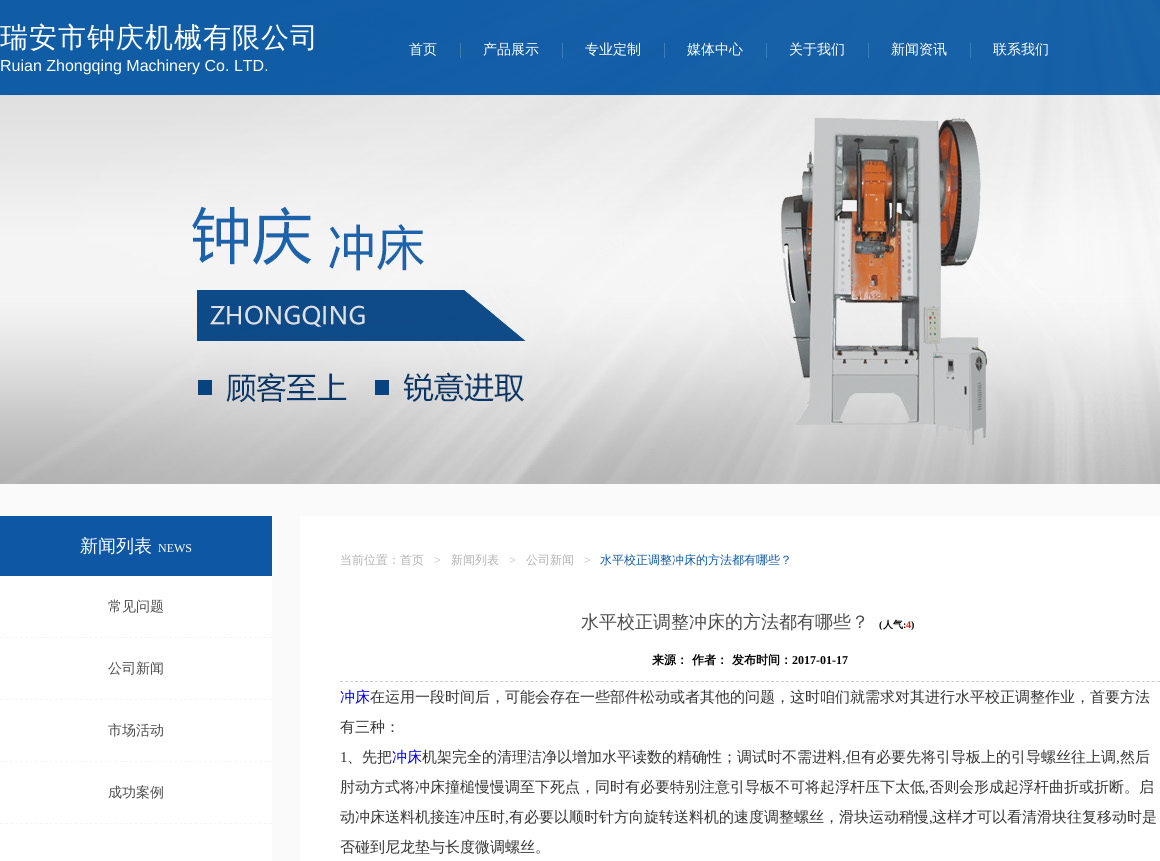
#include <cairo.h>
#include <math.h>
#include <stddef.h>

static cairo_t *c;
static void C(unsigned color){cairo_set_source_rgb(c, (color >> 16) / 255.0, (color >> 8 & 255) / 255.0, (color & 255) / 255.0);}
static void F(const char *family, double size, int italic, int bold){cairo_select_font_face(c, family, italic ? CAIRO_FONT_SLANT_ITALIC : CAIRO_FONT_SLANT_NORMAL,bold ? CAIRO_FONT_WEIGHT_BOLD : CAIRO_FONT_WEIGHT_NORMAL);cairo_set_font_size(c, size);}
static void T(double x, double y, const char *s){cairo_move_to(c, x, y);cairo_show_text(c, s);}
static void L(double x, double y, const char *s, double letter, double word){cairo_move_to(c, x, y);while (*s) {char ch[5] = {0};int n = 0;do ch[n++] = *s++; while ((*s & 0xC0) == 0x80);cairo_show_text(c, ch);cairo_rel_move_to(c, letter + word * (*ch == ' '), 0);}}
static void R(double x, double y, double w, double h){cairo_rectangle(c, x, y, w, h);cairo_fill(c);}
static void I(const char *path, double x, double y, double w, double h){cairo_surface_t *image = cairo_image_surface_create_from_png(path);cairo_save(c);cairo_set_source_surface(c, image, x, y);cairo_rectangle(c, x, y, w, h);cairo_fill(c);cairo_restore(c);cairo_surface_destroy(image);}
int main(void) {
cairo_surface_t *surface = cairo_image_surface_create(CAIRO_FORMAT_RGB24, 1160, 861);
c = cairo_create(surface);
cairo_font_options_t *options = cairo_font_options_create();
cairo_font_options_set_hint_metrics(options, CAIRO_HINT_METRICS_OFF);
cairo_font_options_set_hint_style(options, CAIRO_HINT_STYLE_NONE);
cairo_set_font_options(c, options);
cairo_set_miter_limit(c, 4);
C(0xfafafa);
cairo_paint(c);
I("1.png",0,0,1160,484);
cairo_set_source_rgba(c,0.031,0.341,0.635,0.9);
R(0,0,1160,95);
F("WenQuanYi Zen Hei Medium",28,0,0);
C(0xffffff);
L(0,47,"瑞安市钟庆机械有限公司",1,0);
F("Liberation Sans",16,0,0);
T(0,71,"Ruian Zhongqing Machinery Co. LTD.");
F("WenQuanYi Zen Hei Medium",14,0,0);
T(409,54,"首页");
C(0x437bb0);
R(460,43,1,15);
C(0xffffff);
T(483,54,"产品展示");
C(0x437bb0);
R(562,43,1,15);
C(0xffffff);
T(585,54,"专业定制");
C(0x437bb0);
R(664,43,1,15);
C(0xffffff);
T(687,54,"媒体中心");
C(0x437bb0);
R(766,43,1,15);
C(0xffffff);
T(789,54,"关于我们");
C(0x437bb0);
R(868,43,1,15);
C(0xffffff);
T(891,54,"新闻资讯");
C(0x437bb0);
R(970,43,1,15);
C(0xffffff);
T(993,54,"联系我们");
R(0,576,272,285);
C(0x0d57a4);
R(0,516,272,60);
F("WenQuanYi Zen Hei Medium",18,0,0);
C(0xffffff);
T(80,552,"新闻列表");
F("Liberation Serif",12,0,0);
T(158,552,"NEWS");
cairo_new_path(c);
cairo_move_to(c,0,637.5);
cairo_line_to(c,272,637.5);
C(0xf5f5f5);
cairo_set_line_width(c,1);
cairo_set_dash(c,(double[]){3,1.98},2,0);
cairo_stroke(c);
F("WenQuanYi Zen Hei Medium",14,0,0);
C(0x4c4c4c);
T(108,611,"常见问题");
cairo_new_path(c);
cairo_move_to(c,0,699.5);
cairo_line_to(c,272,699.5);
C(0xf5f5f5);
cairo_stroke(c);
C(0x4c4c4c);
T(108,673,"公司新闻");
cairo_new_path(c);
cairo_move_to(c,0,761.5);
cairo_line_to(c,272,761.5);
C(0xf5f5f5);
cairo_stroke(c);
C(0x4c4c4c);
T(108,735,"市场活动");
cairo_new_path(c);
cairo_move_to(c,0,823.5);
cairo_line_to(c,272,823.5);
C(0xf5f5f5);
cairo_stroke(c);
C(0x4c4c4c);
T(108,797,"成功案例");
C(0xffffff);
R(300,516,860,345);
F("WenQuanYi Zen Hei Medium",12,0,0);
C(0xb2b2b2);
T(340,564,"当前位置：首页");
F("Liberation Serif",12,0,0);
T(434,564,">");
F("WenQuanYi Zen Hei Medium",12,0,0);
T(451,564,"新闻列表");
F("Liberation Serif",12,0,0);
T(509,564,">");
F("WenQuanYi Zen Hei Medium",12,0,0);
T(526,564,"公司新闻");
F("Liberation Serif",12,0,0);
T(584,564,">");
F("WenQuanYi Zen Hei Medium",12,0,0);
C(0x0d57a4);
T(600,564,"水平校正调整冲床的方法都有哪些？");
cairo_new_path(c);
cairo_move_to(c,340,681.5);
cairo_line_to(c,1160,681.5);
C(0xcccccc);
cairo_set_dash(c,(double[]){3,2.01},2,0);
cairo_stroke(c);
F("WenQuanYi Zen Hei Medium",18,0,0);
C(0x4c4c4c);
T(581,628,"水平校正调整冲床的方法都有哪些？");
F("Liberation Serif",10,0,1);
C(0x000000);
T(879,628,"(");
F("WenQuanYi Zen Hei",10,0,1);
T(883,628,"人气");
F("Liberation Serif",10,0,1);
T(903,628,":");
C(0xff0000);
T(906,628,"4");
C(0x000000);
T(911,628,")");
F("WenQuanYi Zen Hei",12,0,1);
T(652,664,"来源：");
T(692,664,"作者：");
T(732,664,"发布时间：");
F("Liberation Serif",12,0,1);
T(792,664,"2017-01-17");
F("WenQuanYi Zen Hei Medium",15,0,0);
C(0x0000ee);
T(340,702,"冲床");
C(0x333333);
T(370,702,"在运用一段时间后，可能会存在一些部件松动或者其他的问题，这时咱们就需求对其进行水平校正调整作业，首要方法");
T(340,732,"有三种：");
F("Liberation Serif",15,0,0);
T(340,762,"1");
F("WenQuanYi Zen Hei Medium",15,0,0);
T(347,762,"、先把");
C(0x0000ee);
T(392,762,"冲床");
C(0x333333);
T(422,762,"机架完全的清理洁净以增加水平读数的精确性；调试时不需进料");
T(846,762,"但有必要先将引导板上的引导螺丝往上调");
T(1120,762,"然后");
F("Liberation Serif",15,0,0);
T(842,762,",");
T(1116,762,",");
F("WenQuanYi Zen Hei Medium",15,0,0);
T(340,792,"肘动方式将冲床撞槌慢慢调至下死点，同时有必要特别注意引导板不可将起浮杆压下太低");
F("Liberation Serif",15,0,0);
T(925,792,",");
F("WenQuanYi Zen Hei Medium",15,0,0);
T(929,792,"否则会形成起浮杆曲折或折断。启");
T(340,822,"动冲床送料机接连冲压时");
F("Liberation Serif",15,0,0);
T(505,822,",");
F("WenQuanYi Zen Hei Medium",15,0,0);
T(509,822,"有必要以顺时针方向旋转送料机的速度调整螺丝，滑块运动稍慢");
F("Liberation Serif",15,0,0);
T(929,822,",");
F("WenQuanYi Zen Hei Medium",15,0,0);
T(932,822,"这样才可以看清滑块往复移动时是");
T(340,852,"否碰到尼龙垫与长度微调螺丝。");
cairo_surface_write_to_png(surface, "o.png");
cairo_font_options_destroy(options);
cairo_destroy(c);
cairo_surface_destroy(surface);
return 0;
}
